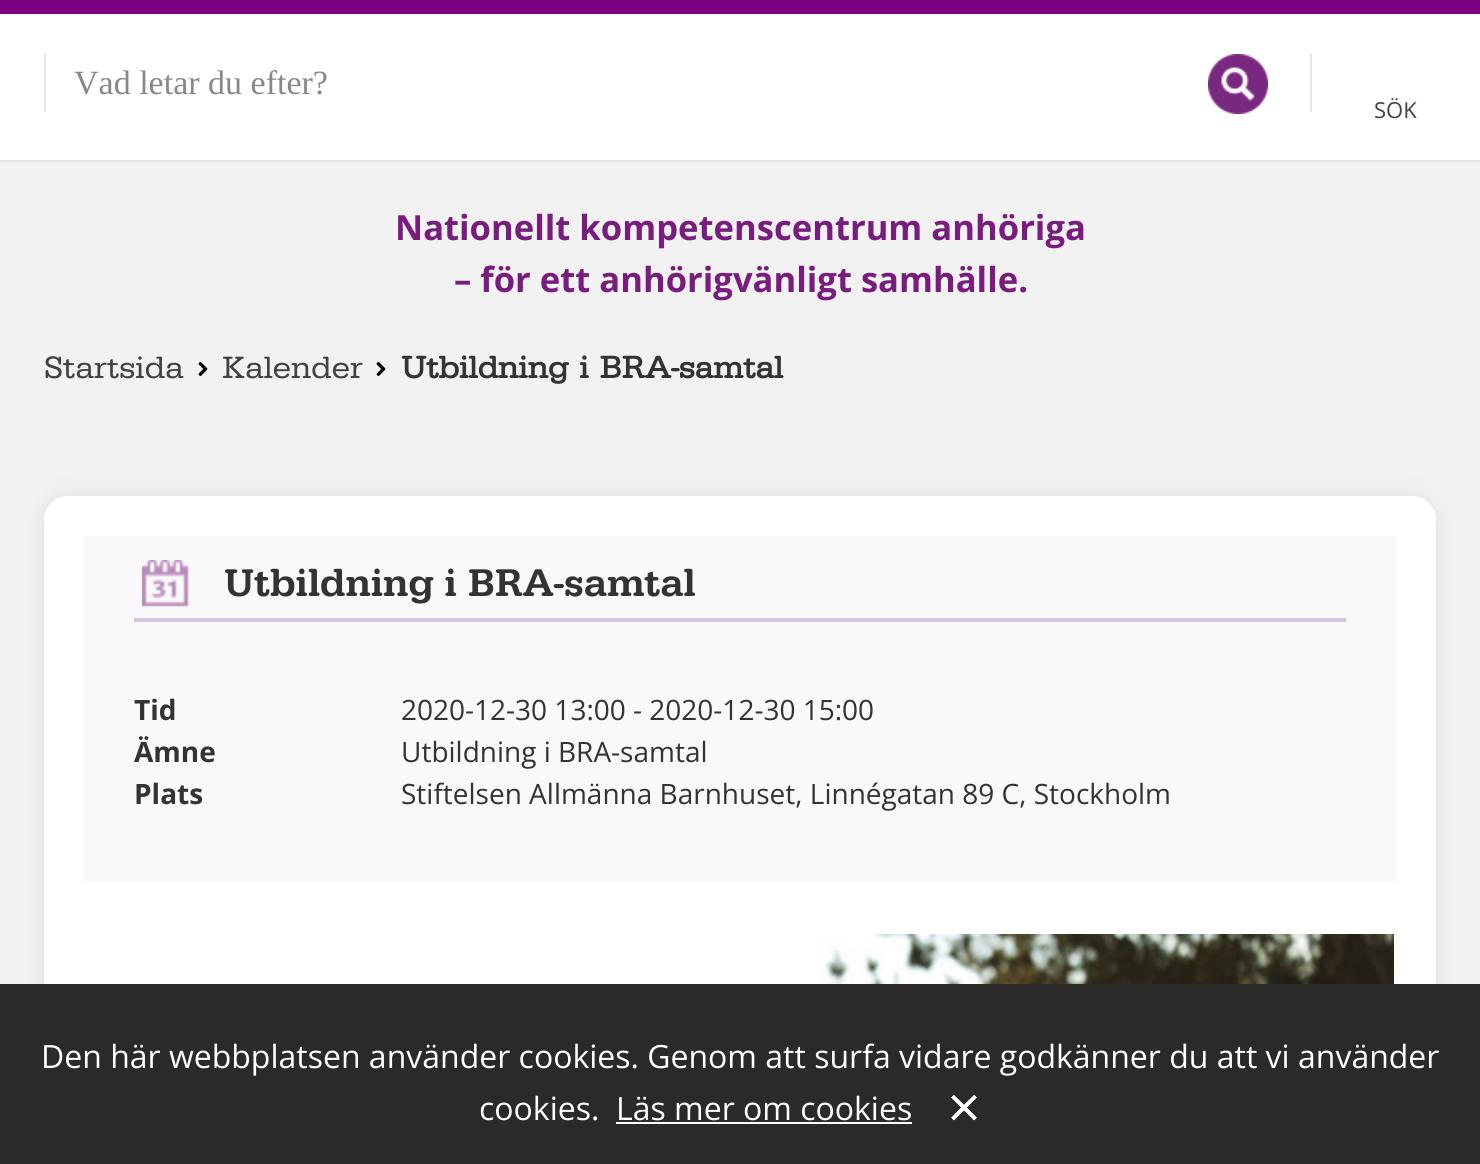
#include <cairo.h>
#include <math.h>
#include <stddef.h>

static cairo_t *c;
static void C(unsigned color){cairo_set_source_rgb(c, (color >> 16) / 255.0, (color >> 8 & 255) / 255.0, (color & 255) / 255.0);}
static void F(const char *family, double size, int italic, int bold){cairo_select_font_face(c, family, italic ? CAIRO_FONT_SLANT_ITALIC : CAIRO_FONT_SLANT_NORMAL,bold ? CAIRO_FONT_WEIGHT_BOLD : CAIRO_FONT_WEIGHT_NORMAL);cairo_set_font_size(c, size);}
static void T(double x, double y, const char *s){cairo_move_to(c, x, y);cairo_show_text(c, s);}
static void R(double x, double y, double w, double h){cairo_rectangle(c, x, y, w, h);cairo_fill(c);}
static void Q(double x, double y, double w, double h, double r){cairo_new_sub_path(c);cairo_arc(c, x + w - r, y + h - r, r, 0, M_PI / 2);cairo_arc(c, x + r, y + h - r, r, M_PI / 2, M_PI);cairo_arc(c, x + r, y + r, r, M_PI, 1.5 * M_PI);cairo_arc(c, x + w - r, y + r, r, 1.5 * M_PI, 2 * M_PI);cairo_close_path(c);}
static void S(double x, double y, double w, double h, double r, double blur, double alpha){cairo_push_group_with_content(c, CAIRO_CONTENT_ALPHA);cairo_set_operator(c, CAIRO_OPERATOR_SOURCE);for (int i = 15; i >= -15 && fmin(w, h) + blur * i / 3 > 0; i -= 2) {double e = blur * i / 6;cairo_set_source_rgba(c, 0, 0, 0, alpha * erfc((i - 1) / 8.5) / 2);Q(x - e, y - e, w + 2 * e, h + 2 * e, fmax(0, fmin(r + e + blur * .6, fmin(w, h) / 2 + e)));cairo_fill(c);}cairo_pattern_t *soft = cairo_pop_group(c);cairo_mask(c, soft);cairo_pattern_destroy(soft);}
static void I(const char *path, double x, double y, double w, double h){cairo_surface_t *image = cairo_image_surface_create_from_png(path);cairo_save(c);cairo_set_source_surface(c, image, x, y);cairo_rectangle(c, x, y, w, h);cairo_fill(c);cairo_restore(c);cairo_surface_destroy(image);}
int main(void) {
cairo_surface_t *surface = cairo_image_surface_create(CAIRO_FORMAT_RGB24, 1480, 1164);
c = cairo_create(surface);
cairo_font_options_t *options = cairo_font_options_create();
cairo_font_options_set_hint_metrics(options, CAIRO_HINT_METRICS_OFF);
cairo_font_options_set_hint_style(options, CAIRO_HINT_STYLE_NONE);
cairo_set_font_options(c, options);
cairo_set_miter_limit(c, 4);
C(0xffffff);
cairo_paint(c);
C(0x7a0081);
R(0,0,1480,14);
C(0xe5e5e5);
R(0,160,1480,2);
R(44,54,2,58);
F("Liberation Serif",34,0,0);
C(0x888888);
T(74,94,"Vad letar du efter?");
I("1.png",1208,54,60,60);
C(0xe5e5e5);
R(1310,54,2,58);
F("Open Sans",22,0,0);
C(0x424242);
T(1374,118,"SÖK");
C(0xf2f2f2);
R(0,162,1480,822);
F("Open Sans",34.6,0,1);
C(0x781d7e);
T(395,240,"Nationellt kompetenscentrum anhöriga");
T(454,292,"– för ett anhörigvänligt samhälle.");
F("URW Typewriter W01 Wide",32,0,0);
C(0x424242);
T(44,378,"Startsida");
I("2.png",198,362,10,14);
T(222,378,"Kalender");
I("2.png",376,362,10,14);
F("URW Typewriter W01 Wide",32,0,1);
C(0x333333);
T(401,378,"Utbildning i BRA-samtal");
C(0xdedede);
S(44,496,1392,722,24,10,1);
C(0xffffff);
Q(44,496,1392,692,24);
cairo_fill(c);
C(0xfaf8fb);
R(84,536,1312,346);
I("3.png",142,560,47,47);
C(0xd5c5dc);
R(134,618,1212,4);
F("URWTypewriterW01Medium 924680 Medium",40,0,0);
C(0x333333);
T(224,596,"Utbildning i BRA-samtal");
F("Open Sans",28,0,1);
T(134,720,"Tid");
F("Open Sans",28,0,0);
T(401,720,"2020-12-30 13:00 - 2020-12-30 15:00");
F("Open Sans",28,0,1);
T(134,762,"Ämne");
F("Open Sans",28,0,0);
T(401,762,"Utbildning i BRA-samtal");
F("Open Sans",28,0,1);
T(134,804,"Plats");
F("Open Sans",28,0,0);
T(401,804,"Stiftelsen Allmänna Barnhuset, Linnégatan 89 C, Stockholm");
I("4.png",596,934,798,50);
C(0x2c2a29);
R(0,984,1480,180);
F("Open Sans",32,0,0);
C(0xffffff);
T(41,1068,"Den här webbplatsen använder cookies. Genom att surfa vidare godkänner du att vi använder");
T(479,1120,"cookies.");
T(616,1120,"Läs mer om cookies");
R(616,1122,296,2);
I("5.png",951,1095,26,26);
cairo_surface_write_to_png(surface, "o.png");
cairo_font_options_destroy(options);
cairo_destroy(c);
cairo_surface_destroy(surface);
return 0;
}
